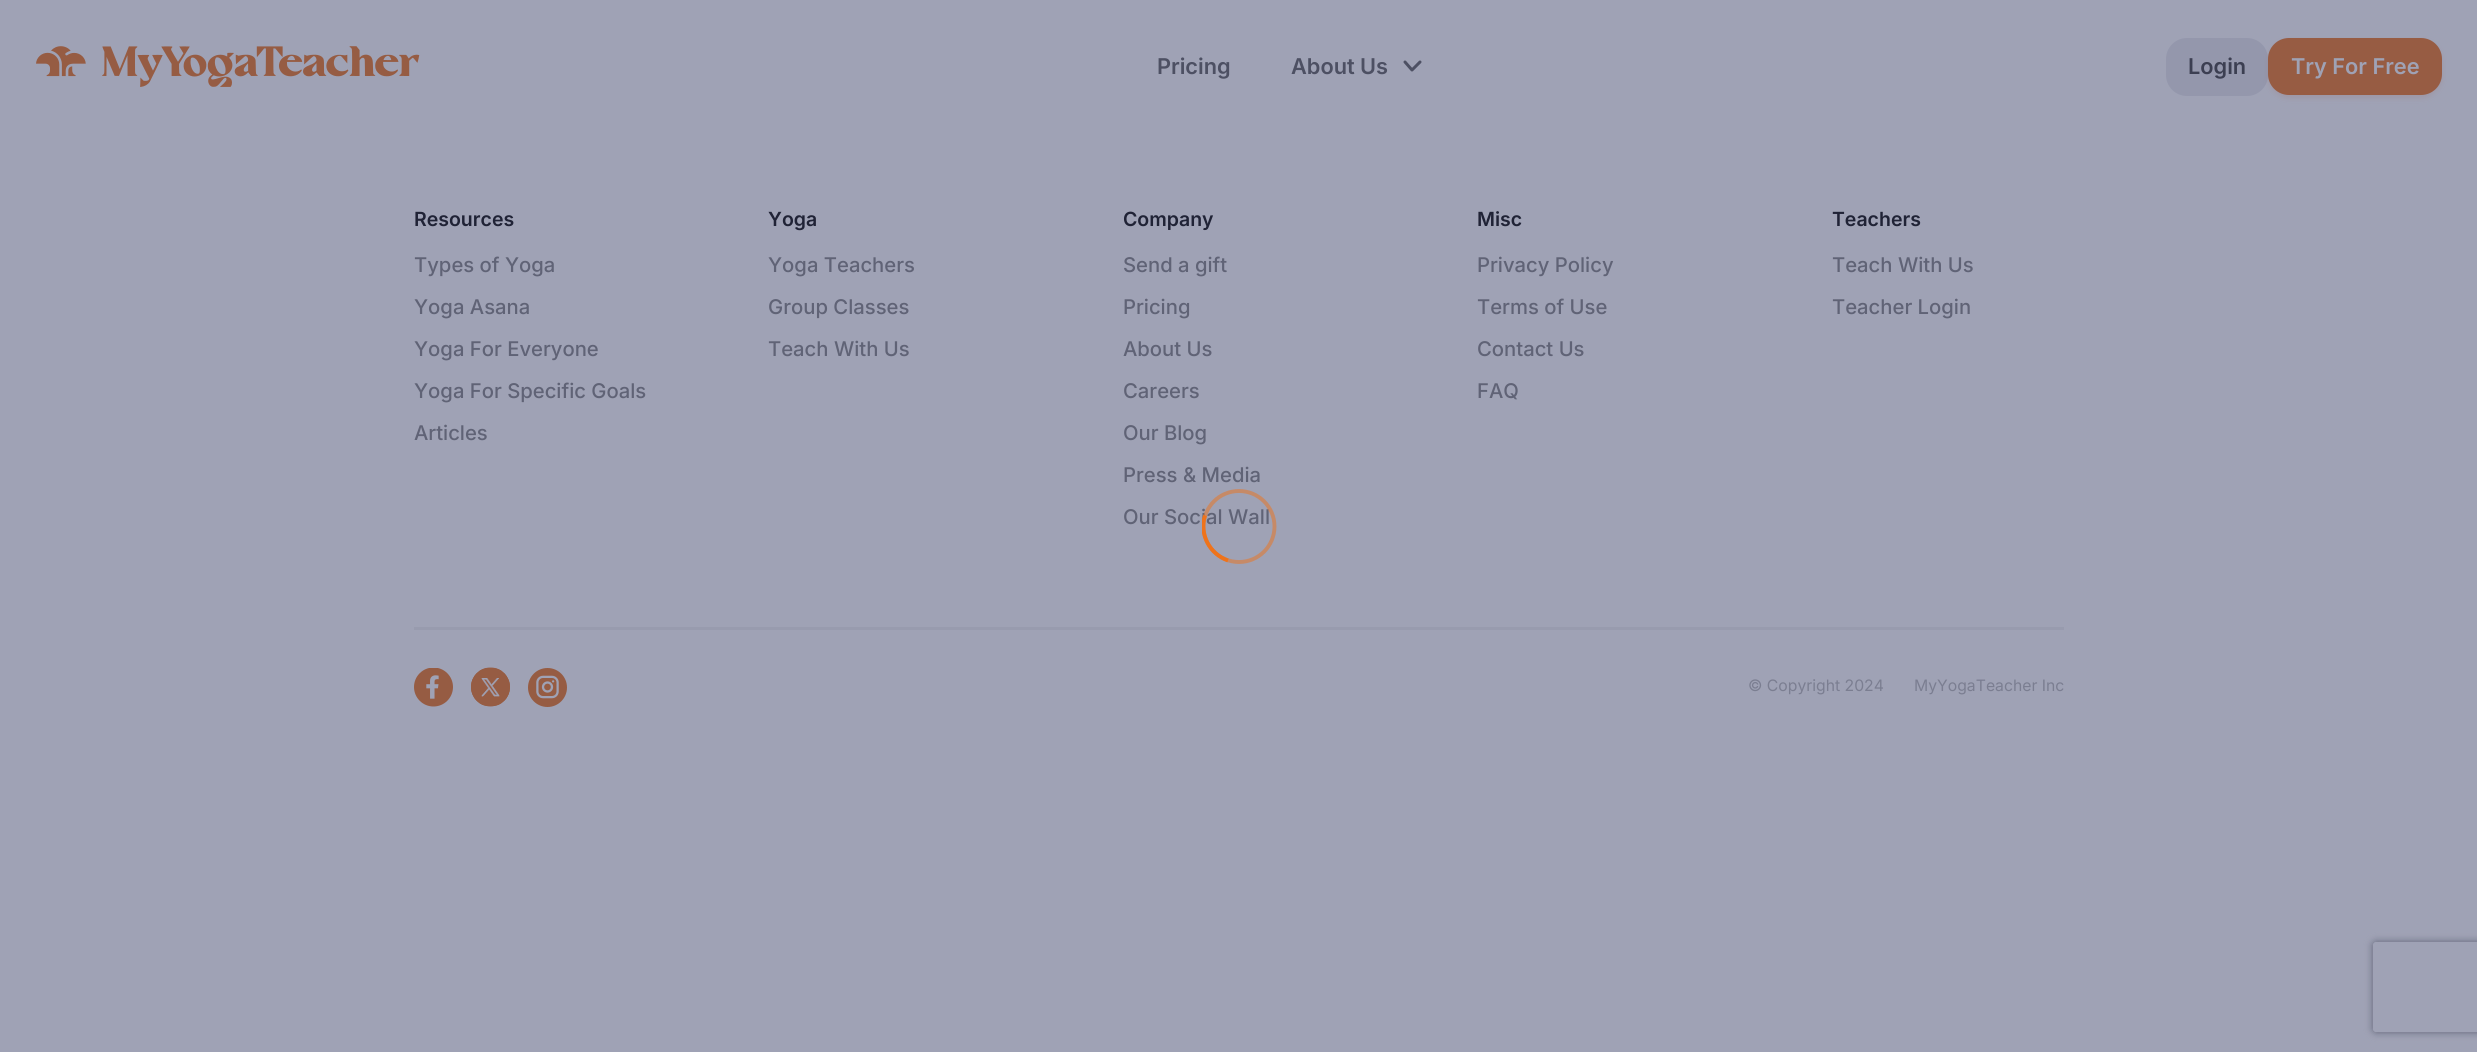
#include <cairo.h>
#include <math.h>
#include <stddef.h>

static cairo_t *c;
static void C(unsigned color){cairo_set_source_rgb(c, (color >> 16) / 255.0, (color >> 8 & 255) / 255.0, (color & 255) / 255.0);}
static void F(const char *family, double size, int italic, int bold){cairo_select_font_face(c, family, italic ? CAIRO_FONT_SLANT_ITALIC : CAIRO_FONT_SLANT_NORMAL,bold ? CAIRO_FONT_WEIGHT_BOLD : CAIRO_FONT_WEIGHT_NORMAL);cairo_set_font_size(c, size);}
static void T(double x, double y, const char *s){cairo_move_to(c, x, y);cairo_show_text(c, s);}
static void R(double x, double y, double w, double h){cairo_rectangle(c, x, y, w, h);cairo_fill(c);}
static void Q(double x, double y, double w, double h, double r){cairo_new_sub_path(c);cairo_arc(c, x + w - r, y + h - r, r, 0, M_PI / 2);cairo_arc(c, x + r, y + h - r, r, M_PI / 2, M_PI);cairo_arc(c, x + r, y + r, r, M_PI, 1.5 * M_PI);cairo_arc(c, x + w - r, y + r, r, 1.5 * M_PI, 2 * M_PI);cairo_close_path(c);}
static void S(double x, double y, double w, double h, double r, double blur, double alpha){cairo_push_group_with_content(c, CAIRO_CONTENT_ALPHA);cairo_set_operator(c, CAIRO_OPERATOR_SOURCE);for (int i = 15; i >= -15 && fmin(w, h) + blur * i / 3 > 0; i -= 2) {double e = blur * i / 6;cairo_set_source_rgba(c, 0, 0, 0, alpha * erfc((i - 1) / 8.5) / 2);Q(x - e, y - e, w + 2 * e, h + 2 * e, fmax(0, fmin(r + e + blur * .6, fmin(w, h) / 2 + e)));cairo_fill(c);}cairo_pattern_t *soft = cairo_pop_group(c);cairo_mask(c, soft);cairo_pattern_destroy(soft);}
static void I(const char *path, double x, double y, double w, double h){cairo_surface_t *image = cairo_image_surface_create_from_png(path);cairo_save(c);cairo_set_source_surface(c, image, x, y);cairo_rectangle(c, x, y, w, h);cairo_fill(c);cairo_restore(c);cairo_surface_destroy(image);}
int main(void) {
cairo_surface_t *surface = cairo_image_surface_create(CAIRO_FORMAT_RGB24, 2477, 1052);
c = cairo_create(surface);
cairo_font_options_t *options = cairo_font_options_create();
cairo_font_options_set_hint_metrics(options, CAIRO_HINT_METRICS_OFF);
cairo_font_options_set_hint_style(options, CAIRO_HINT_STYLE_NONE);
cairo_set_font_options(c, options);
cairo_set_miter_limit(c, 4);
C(0x9fa2b5);
cairo_paint(c);
I("1.png",36,46,384,41);
F("Inter SemiBold",21.75,0,0);
C(0x4d5063);
T(1157,74,"Pricing");
T(1291,74,"About Us");
cairo_new_path(c);
cairo_move_to(c,1405,62);
cairo_line_to(c,1412,70);
cairo_line_to(c,1420,62);
cairo_set_line_width(c,3);
cairo_set_line_cap(c,CAIRO_LINE_CAP_ROUND);
cairo_set_line_join(c,CAIRO_LINE_JOIN_ROUND);
cairo_stroke(c);
C(0x9497ac);
Q(2166,38,102,58,21);
cairo_fill(c);
C(0x3c3f52);
T(2188,74,"Login");
C(0x9c5648);
S(2268,41,174,57,21,3,.15);
C(0x975c43);
Q(2268,38,174,57,21);
cairo_fill(c);
C(0x9fa2b5);
T(2291,74,"Try For Free");
F("Inter SemiBold",19.5,0,0);
C(0x202336);
T(414,226,"Resources");
F("Inter Medium",20.25,0,0);
C(0x606376);
T(414,272,"Types of Yoga");
T(414,314,"Yoga Asana");
T(414,356,"Yoga For Everyone");
T(414,398,"Yoga For Specific Goals");
T(414,440,"Articles");
F("Inter SemiBold",19.5,0,0);
C(0x202336);
T(768,226,"Yoga");
F("Inter Medium",20.25,0,0);
C(0x606376);
T(768,272,"Yoga Teachers");
T(768,314,"Group Classes");
T(768,356,"Teach With Us");
F("Inter SemiBold",19.5,0,0);
C(0x202336);
T(1123,226,"Company");
F("Inter Medium",20.25,0,0);
C(0x606376);
T(1123,272,"Send a gift");
T(1123,314,"Pricing");
T(1123,356,"About Us");
T(1123,398,"Careers");
T(1123,440,"Our Blog");
T(1123,482,"Press & Media");
T(1123,524,"Our Social Wall");
F("Inter SemiBold",19.5,0,0);
C(0x202336);
T(1477,226,"Misc");
F("Inter Medium",20.25,0,0);
C(0x606376);
T(1477,272,"Privacy Policy");
T(1477,314,"Terms of Use");
T(1477,356,"Contact Us");
T(1477,398,"FAQ");
F("Inter SemiBold",19.5,0,0);
C(0x202336);
T(1832,226,"Teachers");
F("Inter Medium",20.25,0,0);
C(0x606376);
T(1832,272,"Teach With Us");
T(1832,314,"Teacher Login");
C(0x989bae);
R(414,627,1650,3);
I("2.png",414,668,39,39);
I("3.png",471,667,39,40);
I("4.png",528,668,39,39);
F("Inter",15.75,0,0);
C(0x7b7e91);
T(1748,691,"© Copyright 2024");
T(1914,691,"MyYogaTeacher Inc");
cairo_save(c);
cairo_rectangle(c,1202,482,75,90);
cairo_clip(c);
cairo_arc(c,1239,526.5,35.5,0,2 * M_PI);
cairo_set_source_rgba(c,0.933,0.451,0.106,0.5);
cairo_set_line_width(c,3.9);
cairo_set_line_cap(c,CAIRO_LINE_CAP_BUTT);
cairo_set_line_join(c,CAIRO_LINE_JOIN_MITER);
cairo_stroke(c);
cairo_new_path(c);
cairo_move_to(c,1205,515.5);
cairo_curve_to(c,1199,534,1209.5,554,1228,560.5);
C(0xee731b);
cairo_stroke(c);
cairo_restore(c);
cairo_save(c);
cairo_set_fill_rule(c,CAIRO_FILL_RULE_EVEN_ODD);
cairo_new_path(c);
cairo_move_to(c,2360,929);
cairo_line_to(c,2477,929);
cairo_line_to(c,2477,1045);
cairo_line_to(c,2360,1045);
cairo_close_path(c);
cairo_move_to(c,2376,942);
cairo_line_to(c,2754,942);
cairo_curve_to(c,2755.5,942,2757,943.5,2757,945);
cairo_line_to(c,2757,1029);
cairo_curve_to(c,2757,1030.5,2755.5,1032,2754,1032);
cairo_line_to(c,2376,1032);
cairo_curve_to(c,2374.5,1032,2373,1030.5,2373,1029);
cairo_line_to(c,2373,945);
cairo_curve_to(c,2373,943.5,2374.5,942,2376,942);
cairo_close_path(c);
cairo_clip(c);
C(0x606376);
S(2373,942,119,90,3,4,1);
cairo_restore(c);
cairo_surface_write_to_png(surface, "o.png");
cairo_font_options_destroy(options);
cairo_destroy(c);
cairo_surface_destroy(surface);
return 0;
}
